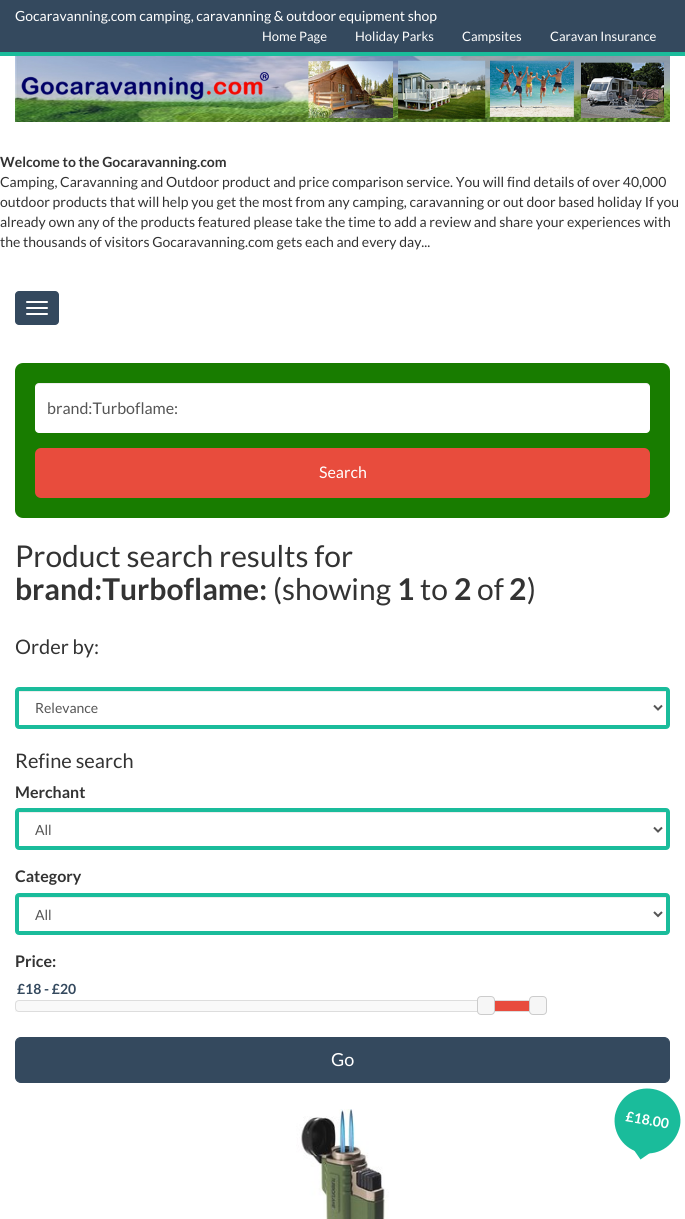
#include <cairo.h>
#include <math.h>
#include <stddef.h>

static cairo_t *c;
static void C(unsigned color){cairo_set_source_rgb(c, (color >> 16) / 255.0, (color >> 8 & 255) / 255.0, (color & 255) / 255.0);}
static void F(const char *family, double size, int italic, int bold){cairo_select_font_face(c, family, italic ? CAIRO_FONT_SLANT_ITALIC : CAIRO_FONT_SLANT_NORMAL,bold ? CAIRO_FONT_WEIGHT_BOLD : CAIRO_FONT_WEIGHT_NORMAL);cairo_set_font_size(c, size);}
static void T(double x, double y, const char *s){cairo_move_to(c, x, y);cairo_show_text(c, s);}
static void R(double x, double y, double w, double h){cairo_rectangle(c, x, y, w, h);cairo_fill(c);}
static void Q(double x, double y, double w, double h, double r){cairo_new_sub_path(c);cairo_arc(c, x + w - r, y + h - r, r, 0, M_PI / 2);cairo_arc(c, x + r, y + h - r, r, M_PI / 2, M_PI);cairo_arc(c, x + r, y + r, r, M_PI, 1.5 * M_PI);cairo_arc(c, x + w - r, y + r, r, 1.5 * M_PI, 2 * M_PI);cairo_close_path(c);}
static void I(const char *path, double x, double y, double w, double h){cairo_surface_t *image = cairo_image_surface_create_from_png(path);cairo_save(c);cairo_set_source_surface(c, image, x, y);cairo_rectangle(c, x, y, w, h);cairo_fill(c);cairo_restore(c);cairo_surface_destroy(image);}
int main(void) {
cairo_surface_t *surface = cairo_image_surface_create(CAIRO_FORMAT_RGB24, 685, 1219);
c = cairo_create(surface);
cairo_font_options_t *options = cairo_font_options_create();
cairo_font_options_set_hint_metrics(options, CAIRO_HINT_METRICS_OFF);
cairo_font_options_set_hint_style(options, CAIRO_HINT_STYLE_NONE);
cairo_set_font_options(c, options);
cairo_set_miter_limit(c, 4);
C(0xffffff);
cairo_paint(c);
C(0x34495e);
R(0,0,685,52);
C(0x1abc9b);
R(0,52,685,4);
F("Lato",14,0,0);
C(0xffffff);
T(15,21,"Gocaravanning.com camping, caravanning & outdoor equipment shop");
F("Lato",13,0,0);
T(262,41,"Home Page");
T(355,41,"Holiday Parks");
T(462,41,"Campsites");
T(550,41,"Caravan Insurance");
I("1.png",15,56,655,66);
F("Lato",14,0,1);
C(0x333333);
T(0,167,"Welcome to the Gocaravanning.com");
F("Lato",14,0,0);
T(0,187,"Camping, Caravanning and Outdoor product and price comparison service. You will find details of over 40,000");
T(0,207,"outdoor products that will help you get the most from any camping, caravanning or out door based holiday If you");
T(0,227,"already own any of the products featured please take the time to add a review and share your experiences with");
T(0,247,"the thousands of visitors Gocaravanning.com gets each and every day...");
C(0x34495e);
Q(15,291,44,34,4);
cairo_fill(c);
C(0xffffff);
Q(26,301,22,2,1);
cairo_fill(c);
Q(26,307,22,2,1);
cairo_fill(c);
Q(26,313,22,2,1);
cairo_fill(c);
C(0x187c00);
Q(15,363,655,155,8);
cairo_fill(c);
C(0xffffff);
Q(35,383,615,50,4);
cairo_fill(c);
cairo_set_source_rgba(c,0,0,0,0.07);
cairo_new_path(c);
cairo_move_to(c,39,384);
cairo_line_to(c,646,384);
cairo_curve_to(c,648,384,650,386,650,388);
cairo_line_to(c,650,387);
cairo_curve_to(c,650,385,648,383,646,383);
cairo_line_to(c,39,383);
cairo_curve_to(c,37,383,35,385,35,387);
cairo_line_to(c,35,388);
cairo_curve_to(c,35,386,37,384,39,384);
cairo_close_path(c);
cairo_fill(c);
F("Lato",16,0,0);
C(0x555555);
T(47,414,"brand:Turboflame:");
C(0xe84c3d);
Q(35,448,615,50,6);
cairo_fill(c);
C(0xffffff);
T(319,478,"Search");
F("Lato",30,0,0);
C(0x333333);
T(15,567,"Product search results for");
F("Lato",30,0,1);
T(15,600,"brand:Turboflame:");
F("Lato",30,0,0);
T(273,600,"(showing");
F("Lato",30,0,1);
T(397,600,"1");
F("Lato",30,0,0);
T(420,600,"to");
F("Lato",30,0,1);
T(454,600,"2");
F("Lato",30,0,0);
T(477,600,"of");
F("Lato",30,0,1);
T(509,600,"2");
F("Lato",30,0,0);
T(527,600,")");
F("Lato",20,0,0);
T(15,654,"Order by:");
C(0xececec);
R(19,691,647,1);
Q(17,689,651,38,2);
C(0x1abc9b);
cairo_set_line_width(c,4);
cairo_stroke(c);
cairo_new_path(c);
cairo_move_to(c,654,705.5);
cairo_line_to(c,658,709.5);
cairo_line_to(c,662,705.5);
C(0x555555);
cairo_set_line_width(c,2);
cairo_stroke(c);
F("Lato",14,0,0);
T(35,713,"Relevance");
F("Lato",20,0,0);
C(0x333333);
T(15,768,"Refine search");
F("Lato",16,0,1);
T(15,798,"Merchant");
C(0xececec);
R(19,812,647,1);
Q(17,810,651,38,2);
C(0x1abc9b);
cairo_set_line_width(c,4);
cairo_stroke(c);
cairo_new_path(c);
cairo_move_to(c,654,827.5);
cairo_line_to(c,658,831.5);
cairo_line_to(c,662,827.5);
C(0x555555);
cairo_set_line_width(c,2);
cairo_stroke(c);
F("Lato",14,0,0);
T(35,835,"All");
F("Lato",16,0,1);
C(0x333333);
T(15,882,"Category");
C(0xececec);
R(19,897,647,1);
Q(17,895,651,38,2);
C(0x1abc9b);
cairo_set_line_width(c,4);
cairo_stroke(c);
cairo_new_path(c);
cairo_move_to(c,654,912);
cairo_line_to(c,658,916);
cairo_line_to(c,662,912);
C(0x555555);
cairo_set_line_width(c,2);
cairo_stroke(c);
F("Lato",14,0,0);
T(35,920,"All");
F("Lato",16,0,1);
C(0x333333);
T(15,967,"Price:");
F("Lato",14,0,1);
C(0x34495e);
T(17,994,"£18 - £20");
C(0xf9f9f9);
R(15,1001,462,11);
Q(15.5,1000.5,523,11,3.5);
C(0xdddddd);
cairo_set_line_width(c,1);
cairo_stroke(c);
C(0xf6f6f6);
Q(477.5,996.5,17,18,3.5);
cairo_fill_preserve(c);
C(0xcccccc);
cairo_stroke(c);
C(0xe84c3d);
R(495,1001,34,10);
C(0xf6f6f6);
Q(529.5,996.5,17,18,3.5);
cairo_fill_preserve(c);
C(0xcccccc);
cairo_stroke(c);
C(0x34495e);
Q(15.5,1037.5,654,45,5.5);
cairo_fill_preserve(c);
cairo_stroke(c);
F("Lato",18,0,0);
C(0xffffff);
T(331,1066,"Go");
I("2.png",296,1109,93,110);
C(0x1abc9b);
cairo_new_path(c);
cairo_move_to(c,653,1089);
cairo_curve_to(c,671,1092,683,1109,680,1126);
cairo_curve_to(c,676,1144,660,1156,642,1153);
cairo_curve_to(c,624,1150,612,1133,615,1115);
cairo_curve_to(c,619,1097,635,1086,653,1089);
cairo_close_path(c);
cairo_fill(c);
F("Lato",14,0,1);
C(0xffffff);
cairo_save(c);
cairo_translate(c,625,1121);
cairo_rotate(c,10 * M_PI / 180);
T(0,0,"£18.00");
cairo_restore(c);
C(0x1abc9b);
cairo_new_path(c);
cairo_move_to(c,632.5,1148);
cairo_line_to(c,652,1151.5);
cairo_line_to(c,640.5,1159.5);
cairo_close_path(c);
cairo_fill(c);
cairo_surface_write_to_png(surface, "o.png");
cairo_font_options_destroy(options);
cairo_destroy(c);
cairo_surface_destroy(surface);
return 0;
}
